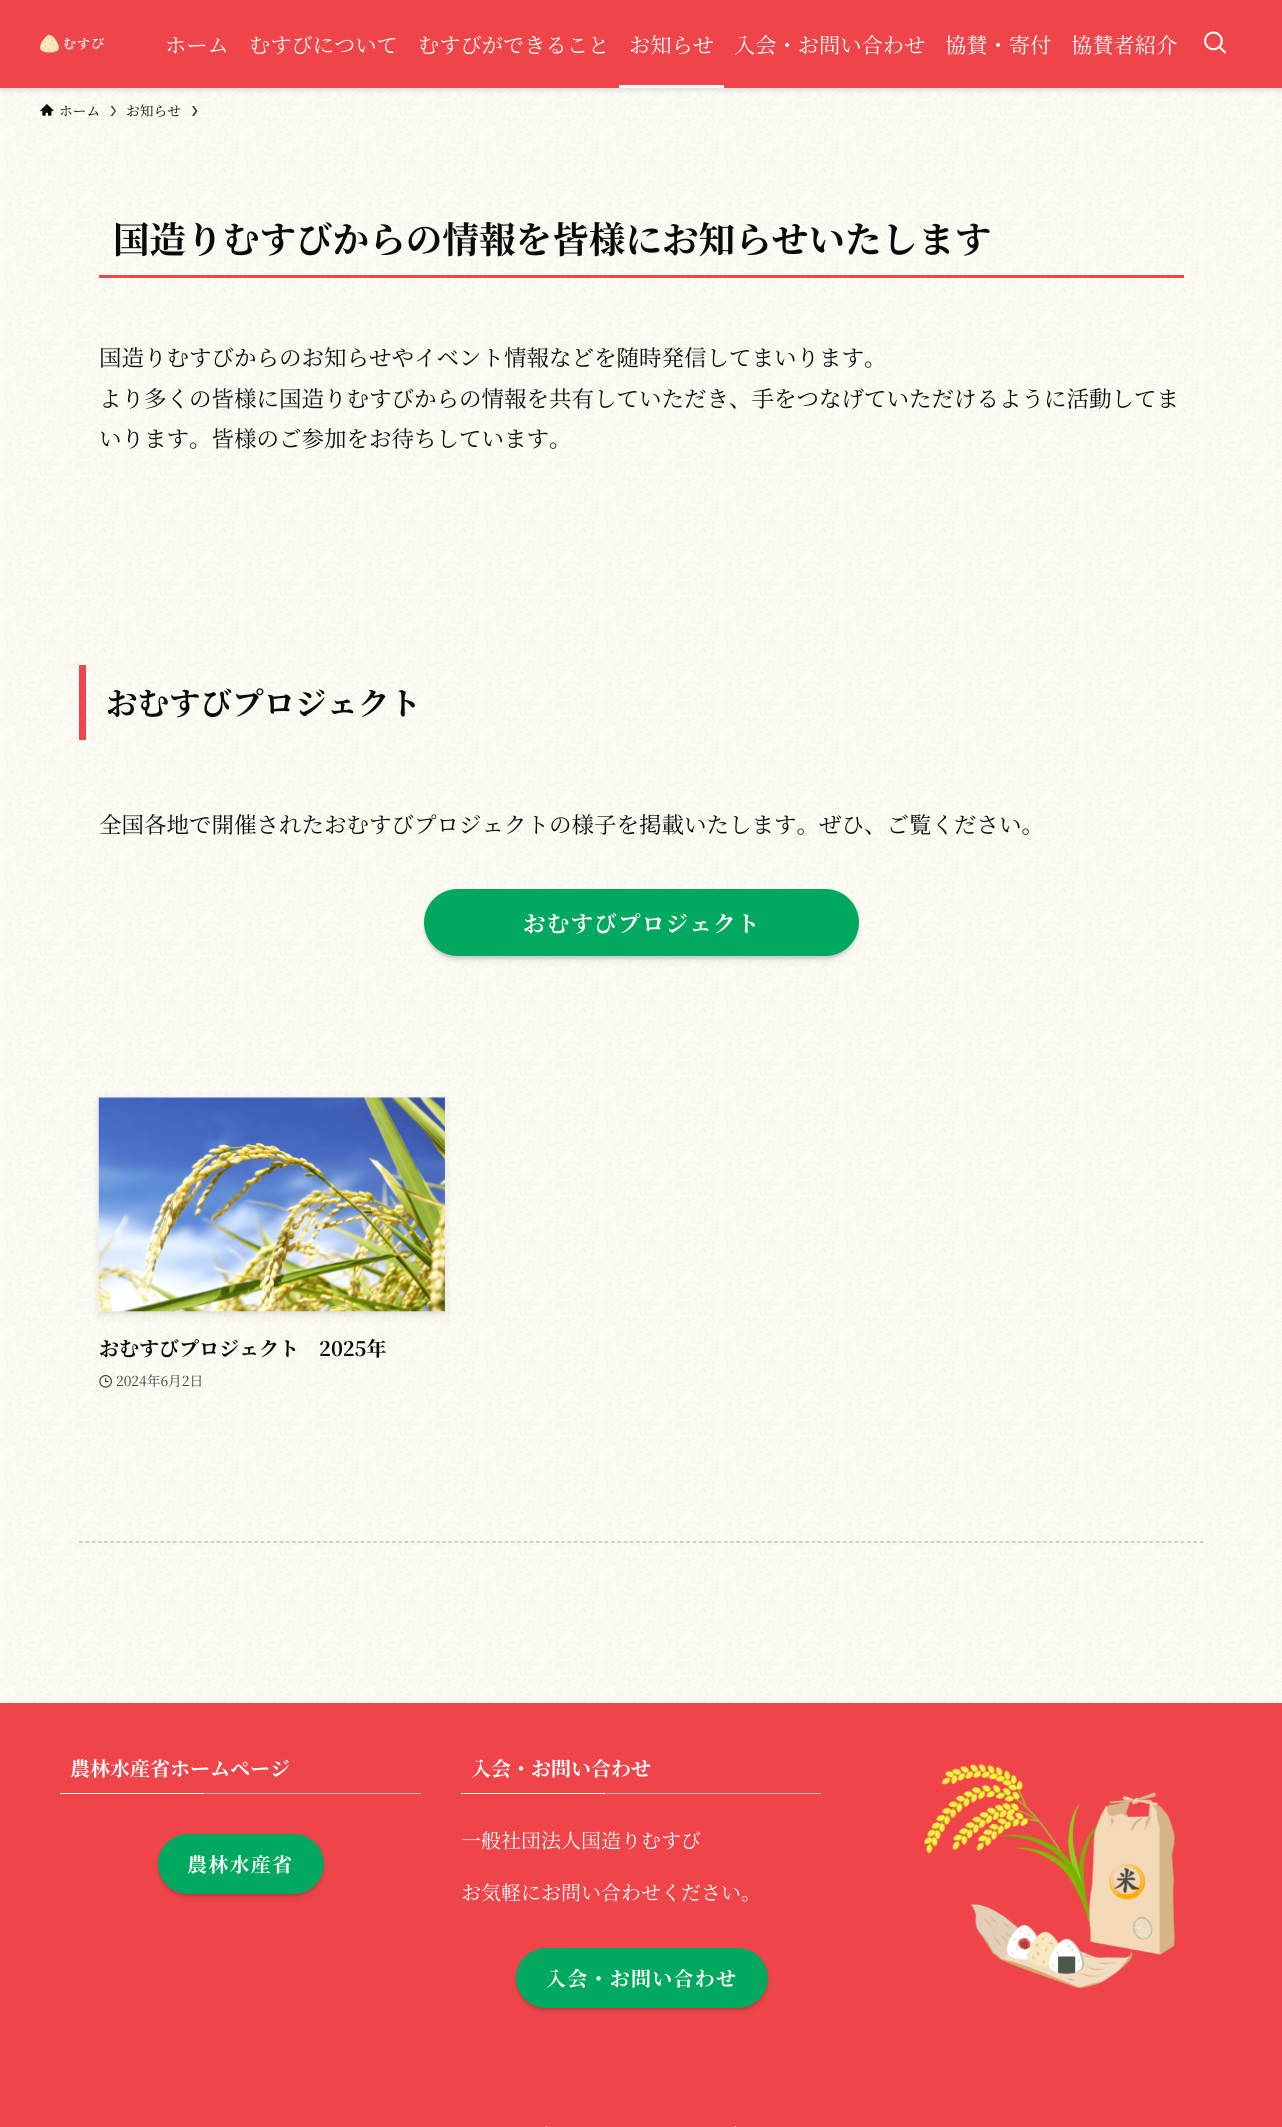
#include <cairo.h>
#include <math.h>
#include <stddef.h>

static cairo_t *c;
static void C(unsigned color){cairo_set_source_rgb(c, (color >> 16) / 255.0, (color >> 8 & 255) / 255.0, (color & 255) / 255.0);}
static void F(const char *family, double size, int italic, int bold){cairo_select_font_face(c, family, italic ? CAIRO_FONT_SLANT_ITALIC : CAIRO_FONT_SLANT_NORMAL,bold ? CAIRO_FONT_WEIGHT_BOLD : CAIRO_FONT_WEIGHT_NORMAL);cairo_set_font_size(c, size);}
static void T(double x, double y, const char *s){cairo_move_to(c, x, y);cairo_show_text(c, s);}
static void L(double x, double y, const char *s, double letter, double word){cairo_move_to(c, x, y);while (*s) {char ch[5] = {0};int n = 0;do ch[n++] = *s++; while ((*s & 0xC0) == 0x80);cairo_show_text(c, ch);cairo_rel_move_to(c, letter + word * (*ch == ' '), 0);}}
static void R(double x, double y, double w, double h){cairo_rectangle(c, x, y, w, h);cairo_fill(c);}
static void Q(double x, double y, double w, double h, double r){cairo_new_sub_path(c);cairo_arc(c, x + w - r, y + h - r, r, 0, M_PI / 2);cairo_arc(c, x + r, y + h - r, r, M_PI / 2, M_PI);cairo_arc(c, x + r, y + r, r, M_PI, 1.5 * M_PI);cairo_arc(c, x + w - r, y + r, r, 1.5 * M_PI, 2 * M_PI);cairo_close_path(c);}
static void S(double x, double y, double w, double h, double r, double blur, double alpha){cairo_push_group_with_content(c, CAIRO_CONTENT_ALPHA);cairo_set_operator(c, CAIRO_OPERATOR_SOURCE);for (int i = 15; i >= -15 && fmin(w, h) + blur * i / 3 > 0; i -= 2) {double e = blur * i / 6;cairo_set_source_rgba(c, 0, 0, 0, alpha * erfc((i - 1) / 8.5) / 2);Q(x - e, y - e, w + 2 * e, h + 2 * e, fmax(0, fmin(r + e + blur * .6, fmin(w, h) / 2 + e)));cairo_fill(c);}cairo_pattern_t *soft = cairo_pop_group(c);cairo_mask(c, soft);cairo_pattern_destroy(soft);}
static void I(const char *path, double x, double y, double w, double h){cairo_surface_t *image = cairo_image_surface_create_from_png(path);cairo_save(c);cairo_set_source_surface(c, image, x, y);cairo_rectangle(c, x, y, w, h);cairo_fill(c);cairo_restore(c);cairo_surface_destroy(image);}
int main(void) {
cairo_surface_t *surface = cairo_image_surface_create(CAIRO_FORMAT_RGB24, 1282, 2127);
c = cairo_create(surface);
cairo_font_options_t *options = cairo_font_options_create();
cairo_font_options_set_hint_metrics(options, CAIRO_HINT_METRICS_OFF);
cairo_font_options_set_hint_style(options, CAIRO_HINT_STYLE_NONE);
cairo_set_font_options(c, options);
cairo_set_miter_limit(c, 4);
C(0xffffff);
cairo_paint(c);
I("3.png",0,88,1282,1615);
C(0x000000);
S(0,3,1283,87,0,2.5,.12);
C(0xef454a);
R(0,0,1282,88);
I("1.png",40,34,65,20);
F("Noto Serif JP",21.25,0,0);
C(0xffffff);
T(165,53,"ホーム");
T(249,53,"むすびについて");
T(418,53,"むすびができること");
T(629,53,"お知らせ");
R(619,85,105,3);
T(734,53,"入会・お問い合わせ");
T(945,53,"協賛・寄付");
T(1071,53,"協賛者紹介");
I("2.png",1204,31,22,23);
I("4.png",40,104,14,12);
F("Noto Serif JP",13.75,0,0);
C(0x0a0a0a);
T(59,116,"ホーム");
cairo_set_source_rgba(c,0.039,0.039,0.039,0.8);
cairo_new_path(c);
cairo_move_to(c,112.5,106);
cairo_line_to(c,110.5,106);
cairo_line_to(c,114.5,111);
cairo_line_to(c,110.5,116);
cairo_line_to(c,112.5,116);
cairo_line_to(c,116,111);
cairo_close_path(c);
cairo_fill(c);
C(0x0a0a0a);
T(126,116,"お知らせ");
cairo_set_source_rgba(c,0.039,0.039,0.039,0.8);
cairo_new_path(c);
cairo_move_to(c,194,106);
cairo_line_to(c,192,106);
cairo_line_to(c,195.5,111);
cairo_line_to(c,192,116);
cairo_line_to(c,194,116);
cairo_line_to(c,197.5,111);
cairo_close_path(c);
cairo_fill(c);
F("Noto Serif JP",36.6,0,1);
C(0x0a0a0a);
T(113,253,"国造りむすびからの情報を皆様にお知らせいたします");
C(0xef454a);
R(99,275,1085,3);
F("Noto Serif JP",22.5,0,0);
C(0x0a0a0a);
T(99,366,"国造りむすびからのお知らせやイベント情報などを随時発信してまいります。");
T(99,407,"より多くの皆様に国造りむすびからの情報を共有していただき、手をつなげていただけるように活動してま");
T(99,447,"いります。皆様のご参加をお待ちしています。");
C(0xef454a);
R(79,665,7,75);
F("Noto Serif JP",31.5,0,1);
C(0x0a0a0a);
T(106,715,"おむすびプロジェクト");
F("Noto Serif JP",22.5,0,0);
T(99,833,"全国各地で開催されたおむすびプロジェクトの様子を掲載いたします。ぜひ、ご覧ください。");
C(0x000000);
S(429,899,425,57,28.5,5,.2);
S(424,891,435,68,34,1,.1);
C(0x00a95f);
Q(424,889,435,67,33.5);
cairo_fill(c);
F("Noto Serif JP",22.5,0,1);
C(0xffffff);
L(523,932,"おむすびプロジェクト",1.25,0);
C(0x000000);
S(104,1108,336,203,0,2.5,.1);
S(99,1100,346,214,0,5,.1);
I("5.png",98,1097,347,215);
F("Noto Serif JP",20,0,1);
C(0x0a0a0a);
T(99,1356,"おむすびプロジェクト　2025年");
I("6.png",99,1375,13,13);
F("Noto Serif JP",13.75,0,0);
C(0x3a3a38);
T(116,1386,"2024年6月2日");
cairo_new_path(c);
cairo_move_to(c,79,1542);
cairo_line_to(c,1204,1542);
C(0xb5b5b5);
cairo_set_line_width(c,1.2);
cairo_set_dash(c,(double[]){3.75,2.51},2,0);
cairo_stroke(c);
C(0xef454a);
R(0,1703,1282,424);
F("Noto Serif JP",20,0,1);
C(0xffffff);
T(70,1776,"農林水産省ホームページ");
R(60,1793,144,1);
C(0xb5b5b5);
R(204,1793,217,1);
C(0x000000);
S(163,1844,156,50,25,5,.2);
S(158,1836,166,60,30,1,.1);
C(0x00a95f);
Q(158,1834,166,60,30);
cairo_fill(c);
C(0xffffff);
L(187,1872,"農林水産省",1.25,0);
T(471,1776,"入会・お問い合わせ");
R(461,1793,144,1);
C(0xb5b5b5);
R(605,1793,216,1);
F("Noto Serif JP",20,0,0);
C(0xffffff);
T(461,1848,"一般社団法人国造りむすび");
T(461,1900,"お気軽にお問い合わせください。");
C(0x000000);
S(521,1958,242,50,25,5,.2);
S(516,1950,252,60,30,1,.1);
C(0x00a95f);
Q(516,1948,252,60,30);
cairo_fill(c);
F("Noto Serif JP",20,0,1);
C(0xffffff);
L(546,1986,"入会・お問い合わせ",1.25,0);
I("7.png",923,1764,252,224);
R(735,2126,1,1);
R(546,2126,1,1);
cairo_surface_write_to_png(surface, "o.png");
cairo_font_options_destroy(options);
cairo_destroy(c);
cairo_surface_destroy(surface);
return 0;
}
